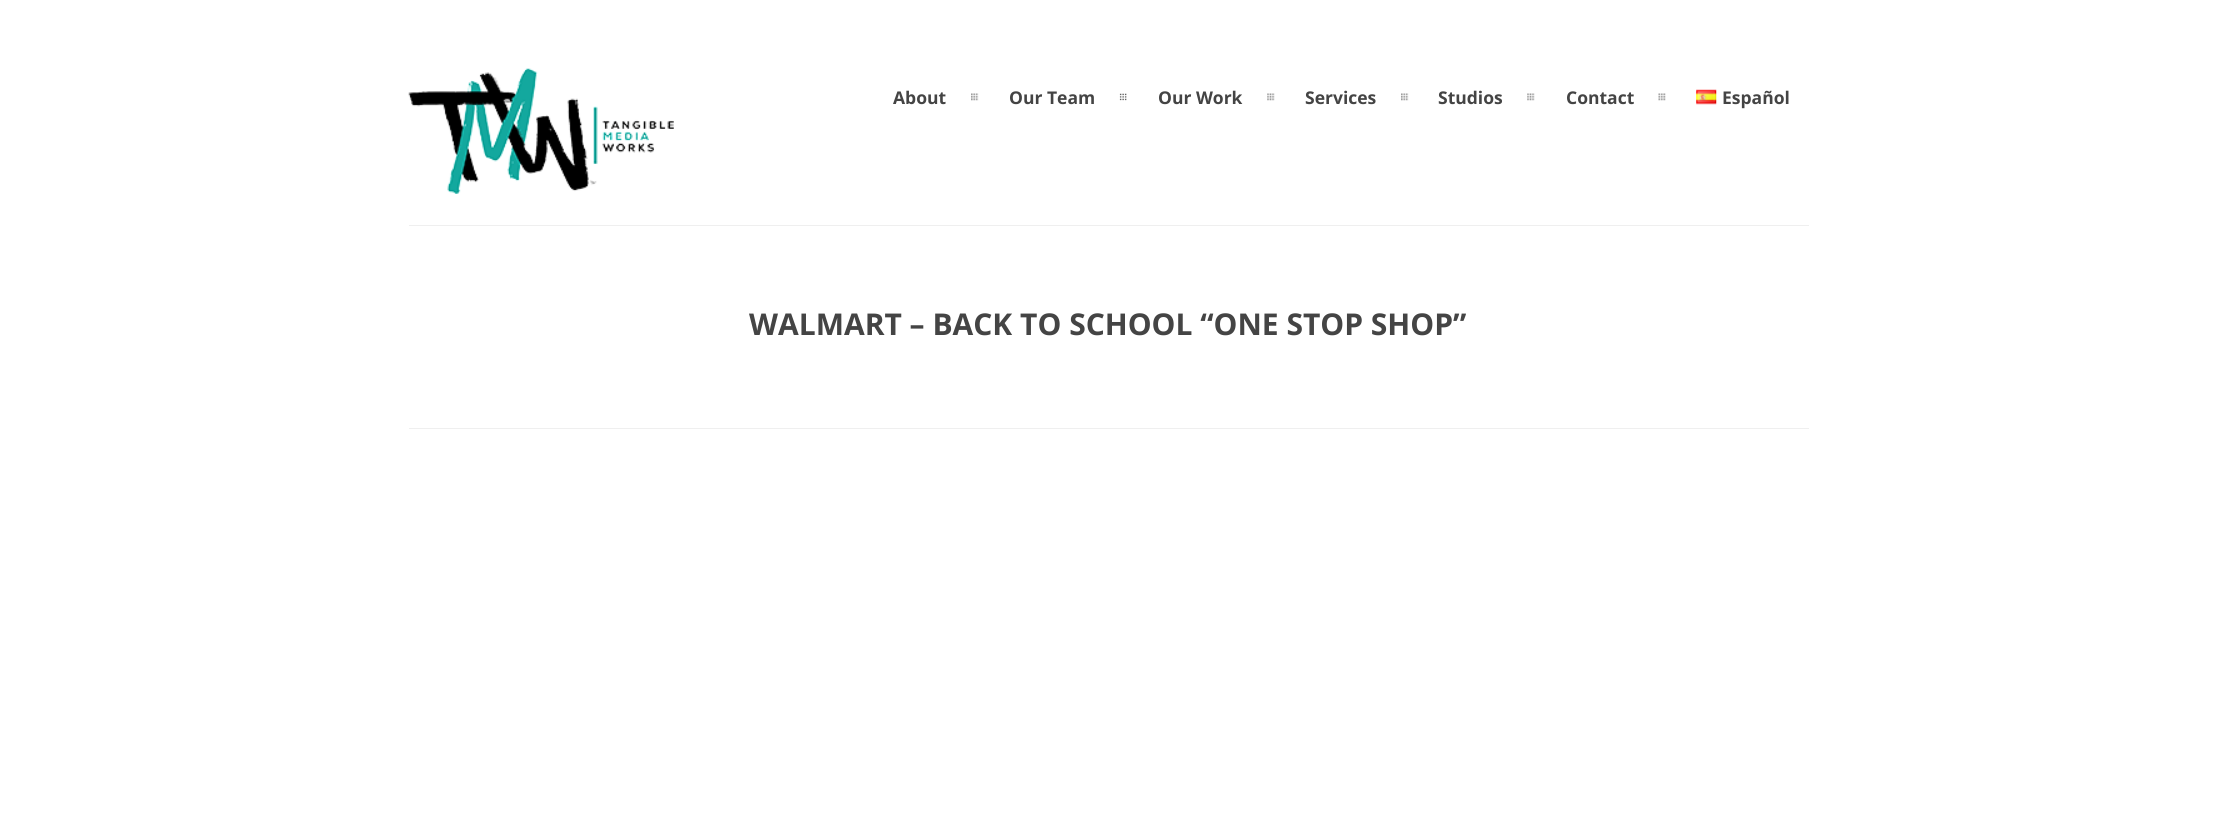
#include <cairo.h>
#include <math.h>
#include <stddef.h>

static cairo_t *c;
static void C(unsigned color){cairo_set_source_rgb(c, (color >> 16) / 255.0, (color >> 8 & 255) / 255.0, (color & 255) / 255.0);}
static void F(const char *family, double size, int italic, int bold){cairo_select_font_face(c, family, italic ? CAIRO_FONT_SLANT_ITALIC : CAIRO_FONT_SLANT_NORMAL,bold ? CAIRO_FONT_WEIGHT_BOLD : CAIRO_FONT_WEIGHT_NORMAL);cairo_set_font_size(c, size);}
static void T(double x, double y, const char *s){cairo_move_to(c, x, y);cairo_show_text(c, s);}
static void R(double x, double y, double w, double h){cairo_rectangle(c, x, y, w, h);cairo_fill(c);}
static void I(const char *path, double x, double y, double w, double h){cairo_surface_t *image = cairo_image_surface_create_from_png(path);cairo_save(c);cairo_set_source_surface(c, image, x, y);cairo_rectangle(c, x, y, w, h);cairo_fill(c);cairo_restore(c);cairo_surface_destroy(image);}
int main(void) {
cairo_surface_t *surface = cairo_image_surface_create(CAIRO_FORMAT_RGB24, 2216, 835);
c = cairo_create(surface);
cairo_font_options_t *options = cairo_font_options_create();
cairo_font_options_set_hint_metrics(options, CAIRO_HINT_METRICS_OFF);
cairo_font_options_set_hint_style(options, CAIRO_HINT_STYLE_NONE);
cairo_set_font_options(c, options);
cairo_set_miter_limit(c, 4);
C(0xffffff);
cairo_paint(c);
I("1.png",408,68,266,126);
I("2.png",971,93,8,8);
F("Open Sans",17.5,0,1);
C(0x444444);
T(893,104,"About");
I("3.png",1119,93,8,8);
T(1009,104,"Our Team");
I("4.png",1267,93,8,8);
T(1158,104,"Our Work");
I("5.png",1401,93,8,8);
T(1305,104,"Services");
I("4.png",1527,93,8,8);
T(1438,104,"Studios");
I("6.png",1658,93,8,8);
T(1566,104,"Contact");
I("7.png",1696,89,21,16);
T(1722,104,"Español");
C(0xefefef);
R(409,225,1400,1);
R(409,428,1400,1);
F("Open Sans",30,0,1);
C(0x444444);
T(749,335,"WALMART – BACK TO SCHOOL “ONE STOP SHOP”");
cairo_surface_write_to_png(surface, "o.png");
cairo_font_options_destroy(options);
cairo_destroy(c);
cairo_surface_destroy(surface);
return 0;
}
